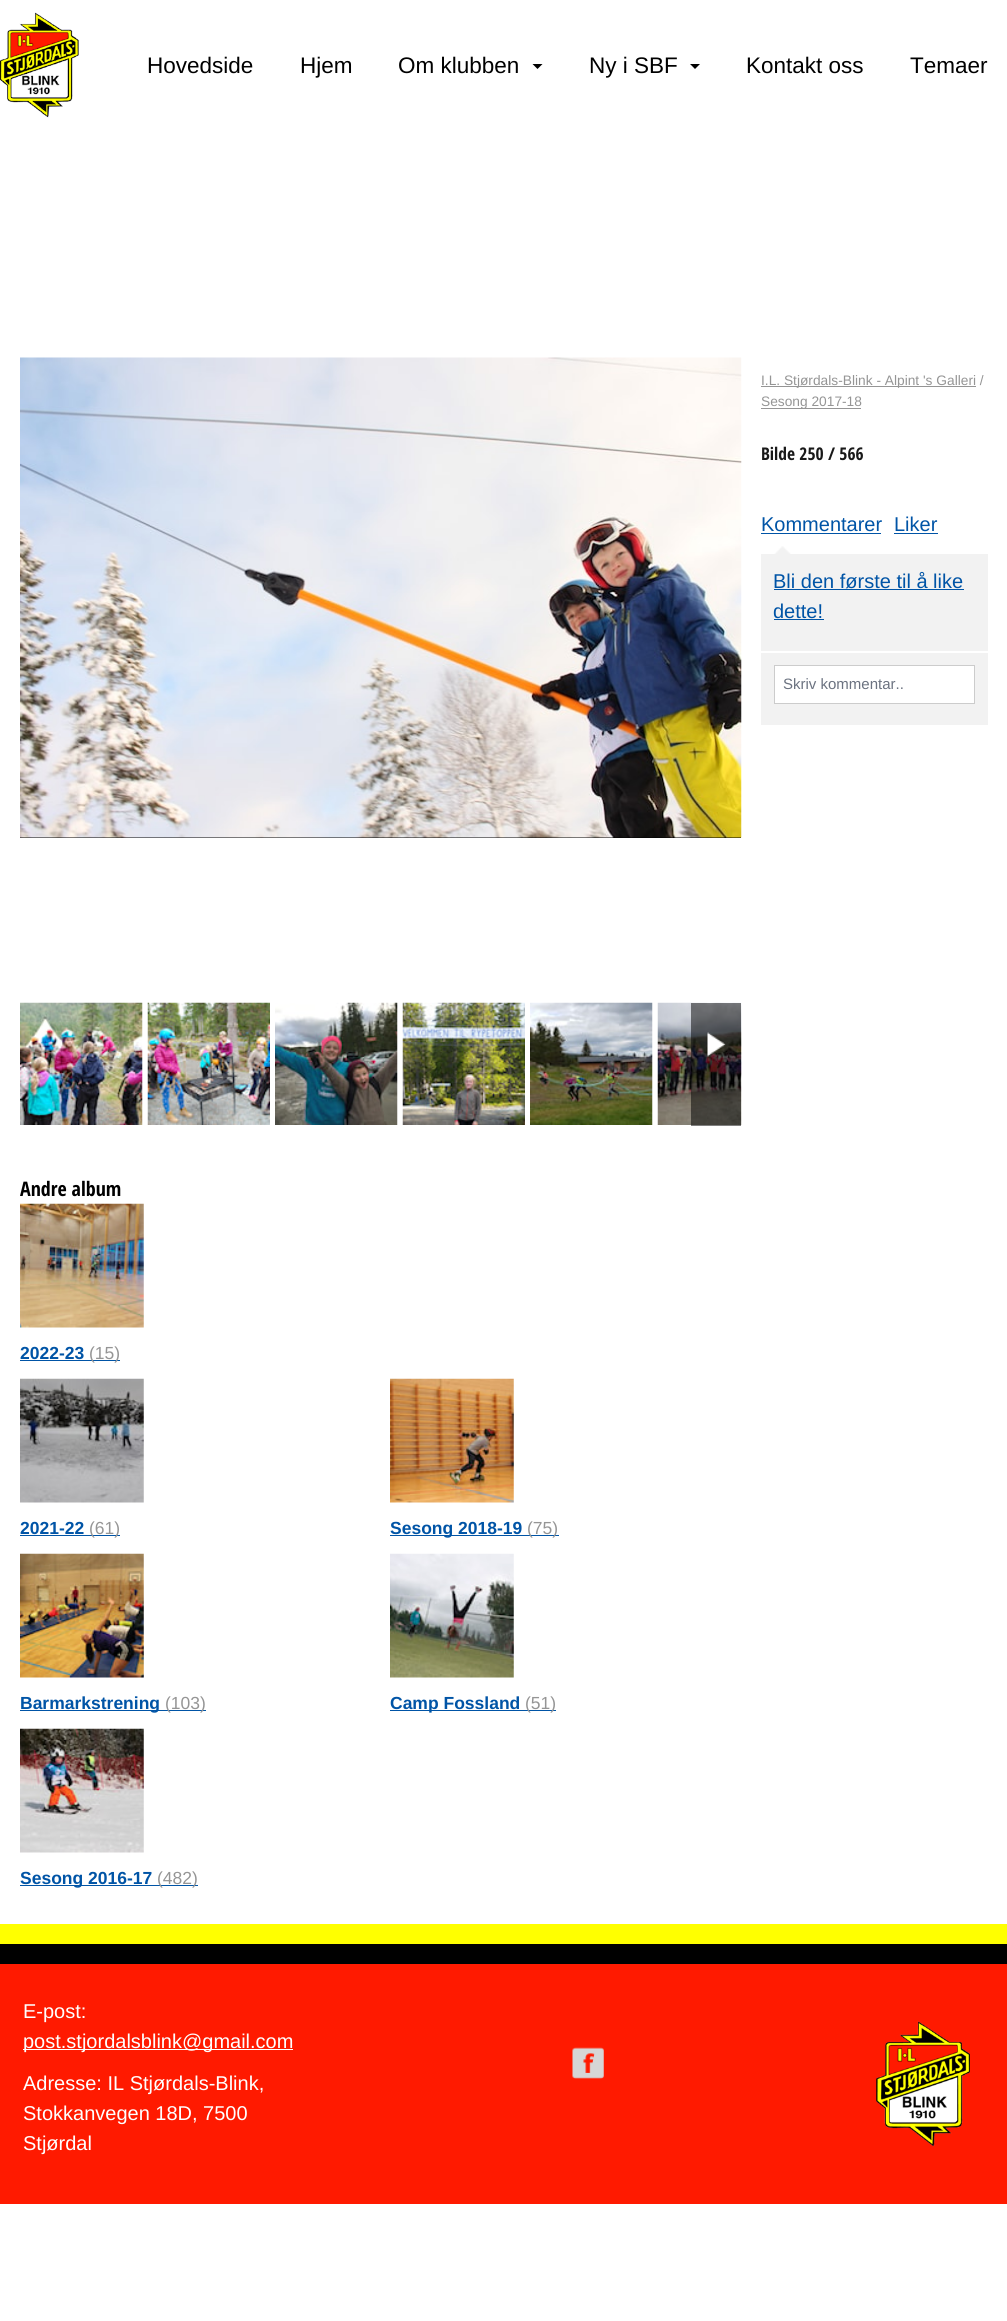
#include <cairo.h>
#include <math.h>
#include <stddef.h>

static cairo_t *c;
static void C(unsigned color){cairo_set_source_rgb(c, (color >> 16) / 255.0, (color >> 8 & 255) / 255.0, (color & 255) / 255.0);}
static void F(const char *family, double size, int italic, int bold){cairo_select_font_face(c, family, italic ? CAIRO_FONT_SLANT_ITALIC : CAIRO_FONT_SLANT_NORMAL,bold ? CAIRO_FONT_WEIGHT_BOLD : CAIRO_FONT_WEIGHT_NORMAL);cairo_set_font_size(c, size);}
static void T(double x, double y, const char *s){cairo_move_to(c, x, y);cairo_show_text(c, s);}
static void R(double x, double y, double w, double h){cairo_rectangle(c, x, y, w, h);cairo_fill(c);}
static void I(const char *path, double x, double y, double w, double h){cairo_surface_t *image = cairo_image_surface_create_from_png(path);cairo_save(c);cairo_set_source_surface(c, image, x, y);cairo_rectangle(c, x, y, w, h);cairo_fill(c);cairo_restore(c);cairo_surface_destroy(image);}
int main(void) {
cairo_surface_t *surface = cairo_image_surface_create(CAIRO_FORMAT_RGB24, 1007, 2321);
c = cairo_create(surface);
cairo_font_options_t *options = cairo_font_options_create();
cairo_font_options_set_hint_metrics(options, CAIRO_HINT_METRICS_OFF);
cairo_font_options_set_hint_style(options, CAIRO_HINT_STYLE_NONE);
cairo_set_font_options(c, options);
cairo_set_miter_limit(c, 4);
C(0xffffff);
cairo_paint(c);
I("1.png",0,12,79,106);
F("Liberation Sans",22.5,0,0);
C(0x000000);
T(147,73,"Hovedside");
T(300,73,"Hjem");
T(398,73,"Om klubben");
cairo_new_path(c);
cairo_move_to(c,532.5,64);
cairo_line_to(c,542.5,64);
cairo_line_to(c,537.5,69);
cairo_close_path(c);
cairo_fill(c);
T(589,73,"Ny i SBF");
cairo_new_path(c);
cairo_move_to(c,690,64);
cairo_line_to(c,700,64);
cairo_line_to(c,695,69);
cairo_close_path(c);
cairo_fill(c);
T(746,73,"Kontakt oss");
T(910,73,"Temaer");
C(0x959595);
R(761,386,215,1);
F("Liberation Sans",13.75,0,0);
T(761,385,"I.L. Stjørdals-Blink - Alpint 's Galleri /");
R(761,408,100,1);
T(761,406,"Sesong 2017-18");
F("Open Sans Condensed",17.5,0,1);
C(0x191919);
T(761,460,"Bilde 250 / 566");
F("Liberation Sans",20,0,0);
C(0x0054a6);
T(761,531,"Kommentarer");
R(761,533,120,1);
T(894,531,"Liker");
R(894,533,44,1);
I("2.png",774,546,17,8);
C(0xf2f2f2);
R(761,554,227,97);
C(0x0054a6);
T(773,588,"Bli den første til å like");
R(774,589,190,1);
T(773,618,"dette!");
R(774,619,50,1);
C(0xf2f2f2);
R(761,653,227,72);
C(0xffffff);
cairo_rectangle(c,774.5,665.5,200,38);
cairo_fill_preserve(c);
C(0xcccccc);
cairo_set_line_width(c,1);
cairo_stroke(c);
F("Liberation Sans",15,0,0);
C(0x6b7280);
T(783,689,"Skriv kommentar..");
C(0x000000);
R(20,837,721,1);
I("3.png",20,357,722,481);
I("4.png",20,1002,123,123);
I("5.png",147,1002,123,123);
I("6.png",275,1002,123,123);
I("7.png",402,1002,123,123);
I("8.png",530,1002,123,123);
I("9.png",657,1002,85,123);
cairo_set_source_rgba(c,0,0,0,0.5);
R(691,1003,50,123);
I("10.png",706,1032,20,25);
F("Open Sans Condensed",20,0,1);
C(0x000000);
T(20,1196,"Andre album");
I("11.png",20,1203,124,125);
F("Liberation Sans",17.5,0,1);
C(0x0054a6);
T(20,1359,"2022-23");
R(20,1360,100,1);
F("Liberation Sans",17.5,0,0);
C(0x959595);
T(89,1359,"(15)");
I("12.png",20,1378,124,125);
F("Liberation Sans",17.5,0,1);
C(0x0054a6);
T(20,1534,"2021-22");
R(20,1535,100,1);
F("Liberation Sans",17.5,0,0);
C(0x959595);
T(89,1534,"(61)");
I("13.png",390,1378,124,125);
C(0x0054a6);
R(390,1535,169,1);
F("Liberation Sans",17.5,0,1);
T(390,1534,"Sesong 2018-19");
F("Liberation Sans",17.5,0,0);
C(0x959595);
T(527,1534,"(75)");
I("14.png",20,1553,124,125);
C(0x0054a6);
R(20,1710,186,1);
F("Liberation Sans",17.5,0,1);
T(20,1709,"Barmarkstrening");
F("Liberation Sans",17.5,0,0);
C(0x959595);
T(165,1709,"(103)");
I("15.png",390,1553,124,125);
C(0x0054a6);
R(390,1710,166,1);
F("Liberation Sans",17.5,0,1);
T(390,1709,"Camp Fossland");
F("Liberation Sans",17.5,0,0);
C(0x959595);
T(525,1709,"(51)");
I("16.png",20,1728,124,125);
C(0x0054a6);
R(20,1885,178,1);
F("Liberation Sans",17.5,0,1);
T(20,1884,"Sesong 2016-17");
F("Liberation Sans",17.5,0,0);
C(0x959595);
T(157,1884,"(482)");
C(0xffff00);
R(0,1924,1007,20);
C(0x000000);
R(0,1944,1007,20);
C(0xff1a00);
R(0,1964,1007,240);
F("Liberation Sans",20,0,0);
C(0xffffff);
T(23,2018,"E-post:");
R(23,2049,270,1);
T(23,2048,"post.stjordalsblink@gmail.com");
T(23,2090,"Adresse: IL Stjørdals-Blink,");
T(23,2120,"Stokkanvegen 18D, 7500");
T(23,2150,"Stjørdal");
I("17.png",572,2047,32,32);
I("18.png",876,2021,94,126);
cairo_surface_write_to_png(surface, "o.png");
cairo_font_options_destroy(options);
cairo_destroy(c);
cairo_surface_destroy(surface);
return 0;
}
